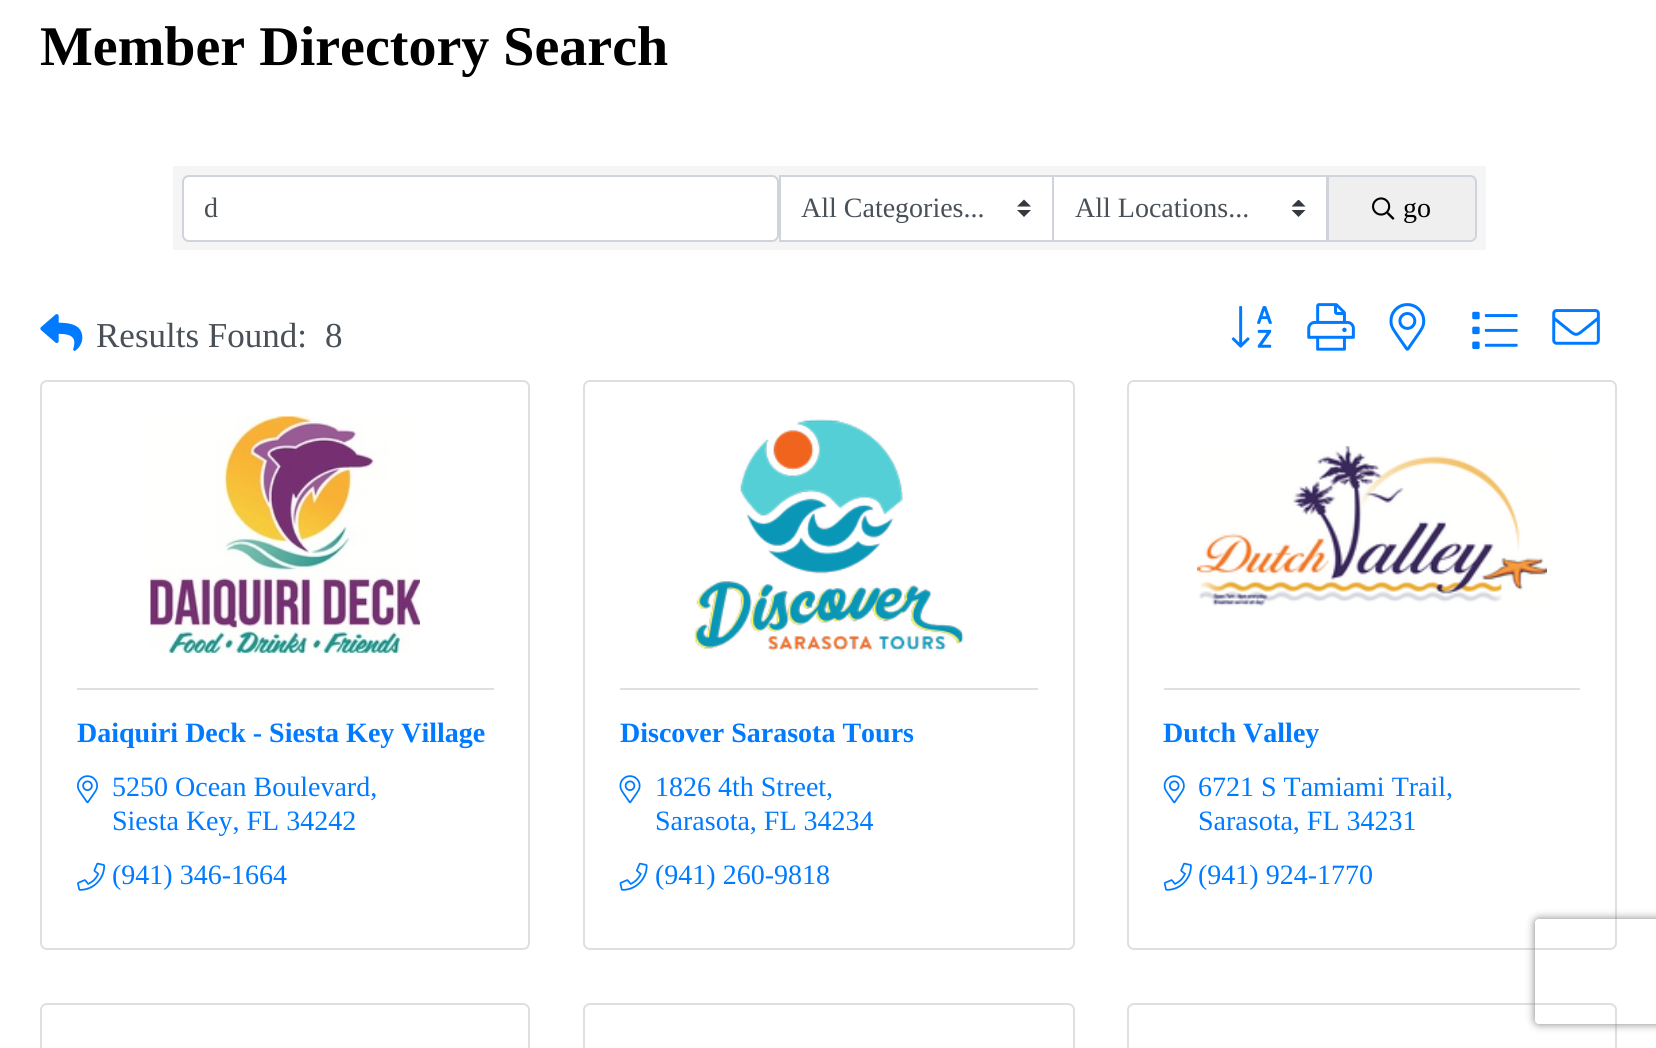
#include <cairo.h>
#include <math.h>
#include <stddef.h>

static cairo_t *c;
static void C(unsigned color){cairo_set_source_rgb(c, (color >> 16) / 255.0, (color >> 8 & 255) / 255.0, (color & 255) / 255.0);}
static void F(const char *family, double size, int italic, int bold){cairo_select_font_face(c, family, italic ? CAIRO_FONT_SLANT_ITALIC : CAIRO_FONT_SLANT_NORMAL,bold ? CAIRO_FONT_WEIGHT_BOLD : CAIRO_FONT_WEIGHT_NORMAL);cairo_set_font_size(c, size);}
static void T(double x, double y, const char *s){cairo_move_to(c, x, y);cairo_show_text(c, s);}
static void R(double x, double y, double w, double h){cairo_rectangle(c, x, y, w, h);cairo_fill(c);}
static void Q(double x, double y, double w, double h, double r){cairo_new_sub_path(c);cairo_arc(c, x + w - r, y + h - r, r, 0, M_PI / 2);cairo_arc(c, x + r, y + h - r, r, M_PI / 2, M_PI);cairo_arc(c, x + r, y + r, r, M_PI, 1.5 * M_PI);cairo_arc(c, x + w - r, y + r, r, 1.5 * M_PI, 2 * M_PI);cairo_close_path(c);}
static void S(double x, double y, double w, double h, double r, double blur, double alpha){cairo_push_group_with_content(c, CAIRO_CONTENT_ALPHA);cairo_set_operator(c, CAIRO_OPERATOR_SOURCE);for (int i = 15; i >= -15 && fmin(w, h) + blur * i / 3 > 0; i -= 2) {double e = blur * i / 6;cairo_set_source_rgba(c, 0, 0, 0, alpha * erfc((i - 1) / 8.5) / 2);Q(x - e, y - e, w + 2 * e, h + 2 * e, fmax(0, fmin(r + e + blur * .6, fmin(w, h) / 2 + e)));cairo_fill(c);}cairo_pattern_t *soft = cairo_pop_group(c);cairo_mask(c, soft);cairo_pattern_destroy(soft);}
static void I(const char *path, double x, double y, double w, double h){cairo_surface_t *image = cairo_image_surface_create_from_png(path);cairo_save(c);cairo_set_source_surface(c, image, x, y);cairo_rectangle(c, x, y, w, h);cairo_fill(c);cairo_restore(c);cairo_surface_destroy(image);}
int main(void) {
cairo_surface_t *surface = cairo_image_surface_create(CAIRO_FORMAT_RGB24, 1656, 1048);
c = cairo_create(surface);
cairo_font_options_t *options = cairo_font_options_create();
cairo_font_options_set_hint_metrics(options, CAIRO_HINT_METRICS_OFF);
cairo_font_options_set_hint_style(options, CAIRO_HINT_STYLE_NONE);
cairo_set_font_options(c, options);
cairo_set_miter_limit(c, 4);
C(0xffffff);
cairo_paint(c);
F("Liberation Serif",56,0,1);
C(0x000000);
T(40,65,"Member Directory Search");
C(0xf5f5f5);
R(173,166,1313,84);
C(0xffffff);
Q(183,176,595,65,6);
cairo_fill_preserve(c);
C(0xced4da);
cairo_stroke(c);
F("Liberation Serif",28,0,0);
C(0x495057);
T(204,217,"d");
C(0xffffff);
R(781,177,271,63);
C(0x343a40);
cairo_new_path(c);
cairo_move_to(c,1024,199.5);
cairo_line_to(c,1017,206.5);
cairo_line_to(c,1031,206.5);
cairo_close_path(c);
cairo_move_to(c,1024,217);
cairo_line_to(c,1017,210);
cairo_line_to(c,1031,210);
cairo_close_path(c);
cairo_fill(c);
cairo_rectangle(c,780,176,273,65);
C(0xced4da);
cairo_stroke(c);
C(0x495057);
T(801,217,"All Categories...");
C(0xffffff);
R(1054,177,272,63);
cairo_save(c);
cairo_rectangle(c,1292,200,14,17);
cairo_clip(c);
C(0x343a40);
cairo_new_path(c);
cairo_move_to(c,1298.5,199.5);
cairo_line_to(c,1291.5,206.5);
cairo_line_to(c,1305.5,206.5);
cairo_close_path(c);
cairo_move_to(c,1298.5,217);
cairo_line_to(c,1291.5,210);
cairo_line_to(c,1305.5,210);
cairo_close_path(c);
cairo_fill(c);
cairo_restore(c);
cairo_rectangle(c,1053,176,274,65);
C(0xced4da);
cairo_stroke(c);
C(0x495057);
T(1075,217,"All Locations...");
C(0xefefef);
cairo_new_path(c);
cairo_move_to(c,1328,176);
cairo_line_to(c,1470,176);
cairo_curve_to(c,1473.5,176,1476,178.5,1476,182);
cairo_line_to(c,1476,235);
cairo_curve_to(c,1476,238.5,1473.5,241,1470,241);
cairo_line_to(c,1328,241);
cairo_close_path(c);
cairo_fill_preserve(c);
C(0xced4da);
cairo_stroke(c);
I("1.png",1372,197,23,23);
C(0x000000);
T(1403,217,"go");
I("2.png",40,314,43,37);
F("Liberation Serif",35,0,0);
C(0x495057);
T(96,347,"Results Found:");
T(325,347,"8");
I("3.png",1231,306,41,42);
I("4.png",1307,303,48,48);
I("5.png",1389,303,37,48);
I("6.png",1472,311,46,38);
I("7.png",1552,309,48,36);
Q(41,381,488,568,6);
C(0xdfdfdf);
cairo_stroke(c);
I("8.png",150,416,270,237);
R(77,688,417,2);
F("Liberation Serif",28,0,1);
C(0x007bff);
T(77,742,"Daiquiri Deck - Siesta Key Village");
I("9.png",77,775,21,29);
F("Liberation Serif",28,0,0);
T(112,796,"5250 Ocean Boulevard,");
T(112,830,"Siesta Key, FL 34242");
I("10.png",77,862,28,29);
T(112,884,"(941) 346-1664");
Q(584,381,490,568,6);
C(0xdfdfdf);
cairo_stroke(c);
I("11.png",693,419,271,232);
R(620,688,418,2);
F("Liberation Serif",28,0,1);
C(0x007bff);
T(620,742,"Discover Sarasota Tours");
I("12.png",619,775,22,29);
F("Liberation Serif",28,0,0);
T(655,796,"1826 4th Street,");
T(655,830,"Sarasota, FL 34234");
I("13.png",619,862,29,29);
T(655,884,"(941) 260-9818");
Q(1128,381,488,568,6);
C(0xdfdfdf);
cairo_stroke(c);
I("14.png",1197,446,350,160);
R(1164,688,416,2);
F("Liberation Serif",28,0,1);
C(0x007bff);
T(1163,742,"Dutch Valley");
I("15.png",1163,775,22,29);
F("Liberation Serif",28,0,0);
T(1198,796,"6721 S Tamiami Trail,");
T(1198,830,"Sarasota, FL 34231");
I("16.png",1163,862,29,29);
T(1198,884,"(941) 924-1770");
Q(41,1004,488,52,6);
C(0xdfdfdf);
cairo_stroke(c);
Q(584,1004,490,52,6);
cairo_stroke(c);
Q(1128,1004,488,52,6);
cairo_stroke(c);
cairo_save(c);
cairo_set_fill_rule(c,CAIRO_FILL_RULE_EVEN_ODD);
cairo_new_path(c);
cairo_move_to(c,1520,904);
cairo_line_to(c,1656,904);
cairo_line_to(c,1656,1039);
cairo_line_to(c,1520,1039);
cairo_close_path(c);
cairo_move_to(c,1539,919);
cairo_line_to(c,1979,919);
cairo_curve_to(c,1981,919,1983,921,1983,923);
cairo_line_to(c,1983,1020);
cairo_curve_to(c,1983,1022,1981,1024,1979,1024);
cairo_line_to(c,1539,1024);
cairo_curve_to(c,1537,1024,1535,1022,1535,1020);
cairo_line_to(c,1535,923);
cairo_curve_to(c,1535,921,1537,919,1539,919);
cairo_close_path(c);
cairo_clip(c);
C(0x808080);
S(1535,919,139,105,4,4.5,1);
cairo_restore(c);
cairo_surface_write_to_png(surface, "o.png");
cairo_font_options_destroy(options);
cairo_destroy(c);
cairo_surface_destroy(surface);
return 0;
}
